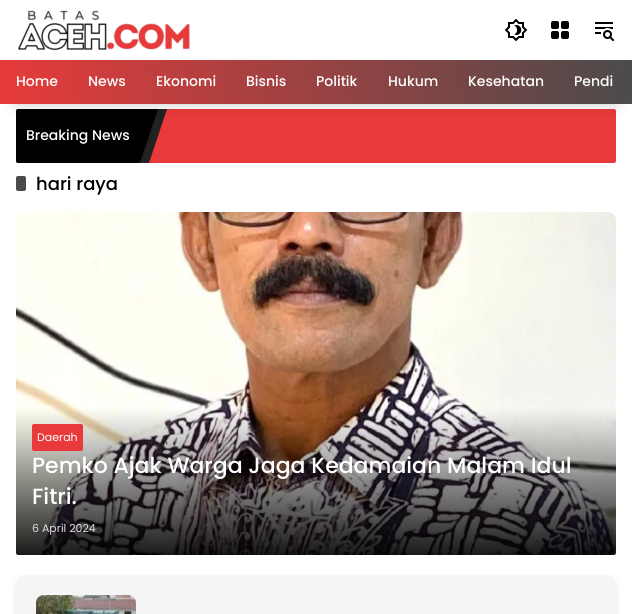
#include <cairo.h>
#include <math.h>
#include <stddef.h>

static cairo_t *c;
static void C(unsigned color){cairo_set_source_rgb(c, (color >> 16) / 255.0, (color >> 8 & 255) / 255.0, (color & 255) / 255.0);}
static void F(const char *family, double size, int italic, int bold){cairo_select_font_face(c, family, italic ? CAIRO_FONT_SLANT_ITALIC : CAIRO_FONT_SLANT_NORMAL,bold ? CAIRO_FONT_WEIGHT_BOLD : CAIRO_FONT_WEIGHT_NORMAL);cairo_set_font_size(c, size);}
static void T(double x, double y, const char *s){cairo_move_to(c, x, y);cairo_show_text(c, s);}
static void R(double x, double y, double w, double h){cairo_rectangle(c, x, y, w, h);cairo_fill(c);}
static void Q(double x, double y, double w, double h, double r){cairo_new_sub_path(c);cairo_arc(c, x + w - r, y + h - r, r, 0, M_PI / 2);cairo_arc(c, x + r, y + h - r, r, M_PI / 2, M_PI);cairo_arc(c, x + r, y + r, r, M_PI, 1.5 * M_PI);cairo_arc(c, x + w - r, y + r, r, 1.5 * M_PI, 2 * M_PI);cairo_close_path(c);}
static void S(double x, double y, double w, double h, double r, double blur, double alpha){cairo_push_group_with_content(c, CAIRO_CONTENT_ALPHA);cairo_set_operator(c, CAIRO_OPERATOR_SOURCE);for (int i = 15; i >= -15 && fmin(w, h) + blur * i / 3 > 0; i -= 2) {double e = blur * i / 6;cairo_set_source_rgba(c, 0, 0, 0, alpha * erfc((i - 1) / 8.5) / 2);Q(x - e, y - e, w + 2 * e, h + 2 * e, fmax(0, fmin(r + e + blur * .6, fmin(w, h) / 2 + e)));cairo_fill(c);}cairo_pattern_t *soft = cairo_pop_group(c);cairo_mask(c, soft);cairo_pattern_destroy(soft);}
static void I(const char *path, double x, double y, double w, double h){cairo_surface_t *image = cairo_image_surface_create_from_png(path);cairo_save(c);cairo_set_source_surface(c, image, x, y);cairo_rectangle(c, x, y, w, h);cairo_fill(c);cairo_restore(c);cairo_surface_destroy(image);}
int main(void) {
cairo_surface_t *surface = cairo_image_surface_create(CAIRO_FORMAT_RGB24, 632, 614);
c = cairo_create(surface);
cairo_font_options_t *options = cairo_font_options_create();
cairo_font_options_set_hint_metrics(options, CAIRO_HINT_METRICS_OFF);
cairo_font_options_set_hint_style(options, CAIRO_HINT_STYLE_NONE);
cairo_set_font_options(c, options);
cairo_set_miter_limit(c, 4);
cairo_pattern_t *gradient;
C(0xffffff);
cairo_paint(c);
I("1.png",18,10,172,41);
I("2.png",504,18,24,24);
I("3.png",551,21,18,18);
I("4.png",595,22,20,20);
C(0xe83a3a);
Q(16,109,600,54,2);
cairo_fill(c);
C(0x000000);
cairo_new_path(c);
cairo_move_to(c,18,109);
cairo_line_to(c,140,109);
cairo_line_to(c,140,163);
cairo_line_to(c,18,163);
cairo_curve_to(c,17,163,16,162,16,161);
cairo_line_to(c,16,111);
cairo_curve_to(c,16,110,17,109,18,109);
cairo_close_path(c);
cairo_fill(c);
C(0x222222);
cairo_new_path(c);
cairo_move_to(c,157,109);
cairo_line_to(c,167,109);
cairo_line_to(c,149,163);
cairo_line_to(c,139,163);
cairo_close_path(c);
cairo_fill(c);
C(0x000000);
cairo_new_path(c);
cairo_move_to(c,140,109);
cairo_line_to(c,158,109);
cairo_line_to(c,140,163);
cairo_close_path(c);
cairo_fill(c);
C(0x000000);
S(15,90,602,14,0,7.5,.2);
gradient = cairo_pattern_create_linear(5.8,137,626,27);
cairo_pattern_add_color_stop_rgba(gradient,0,0.91,0.227,0.227,1);
cairo_pattern_add_color_stop_rgba(gradient,1,0.294,0.294,0.294,1);
cairo_set_source(c,gradient);
cairo_pattern_destroy(gradient);
R(0,60,632,44);
F("Poppins Medium",14,0,0);
C(0xffffff);
T(16,86,"Home");
T(88,86,"News");
T(156,86,"Ekonomi");
T(246,86,"Bisnis");
T(316,86,"Politik");
T(388,86,"Hukum");
T(468,86,"Kesehatan");
T(574,86,"Pendi");
T(26,140,"Breaking News");
C(0x4b4b4b);
Q(16,176,10,15,2);
cairo_fill(c);
F("Poppins Medium",18,0,0);
C(0x000000);
T(36,190,"hari raya");
I("5.png",16,212,600,343);
gradient = cairo_pattern_create_linear(316,555,316,408);
cairo_pattern_add_color_stop_rgba(gradient,0,0,0,0,.9);
cairo_pattern_add_color_stop_rgba(gradient,1,0,0,0,0);
cairo_set_source(c,gradient);
cairo_pattern_destroy(gradient);
cairo_new_path(c);
cairo_move_to(c,16,408);
cairo_line_to(c,616,408);
cairo_line_to(c,616,553);
cairo_curve_to(c,616,554,615,555,614,555);
cairo_line_to(c,18,555);
cairo_curve_to(c,17,555,16,554,16,553);
cairo_close_path(c);
cairo_fill(c);
C(0xe83a3a);
Q(32,424,51,27,2);
cairo_fill(c);
F("Poppins",11,0,0);
C(0xffffff);
T(37,441,"Daerah");
F("Poppins Medium",22,0,0);
T(32,473,"Pemko Ajak Warga Jaga Kedamaian Malam Idul");
T(32,504,"Fitri.");
F("Poppins",11,0,0);
C(0xdddddd);
T(32,532,"6 April 2024");
C(0x000000);
S(16,579,600,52,8,3,.1);
C(0xf5f5f5);
Q(16,575,600,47,8);
cairo_fill(c);
I("6.png",36,595,100,19);
cairo_surface_write_to_png(surface, "o.png");
cairo_font_options_destroy(options);
cairo_destroy(c);
cairo_surface_destroy(surface);
return 0;
}
